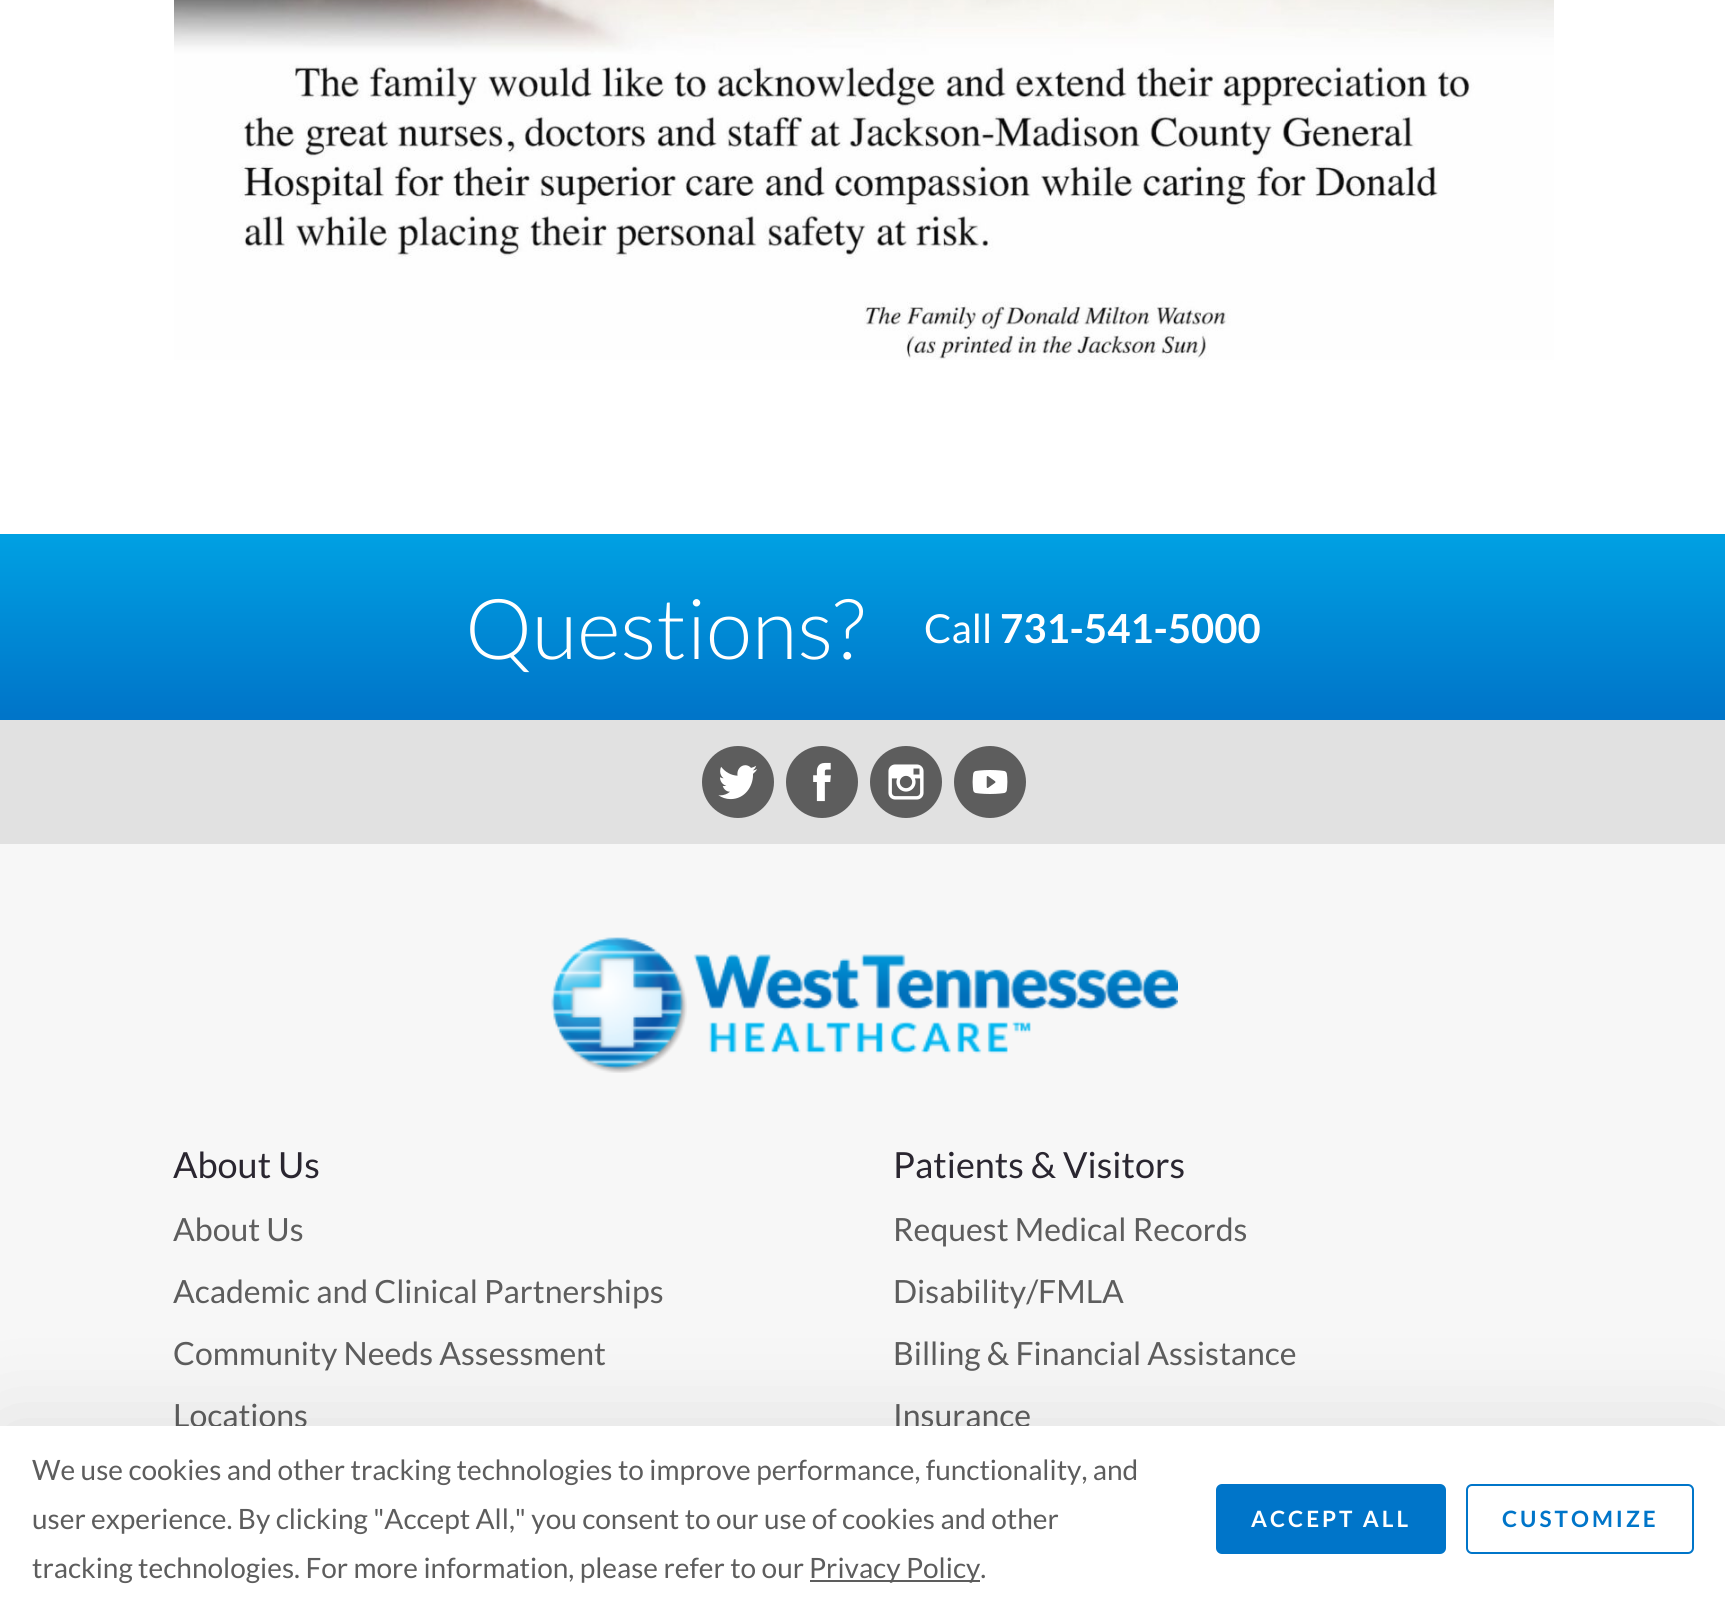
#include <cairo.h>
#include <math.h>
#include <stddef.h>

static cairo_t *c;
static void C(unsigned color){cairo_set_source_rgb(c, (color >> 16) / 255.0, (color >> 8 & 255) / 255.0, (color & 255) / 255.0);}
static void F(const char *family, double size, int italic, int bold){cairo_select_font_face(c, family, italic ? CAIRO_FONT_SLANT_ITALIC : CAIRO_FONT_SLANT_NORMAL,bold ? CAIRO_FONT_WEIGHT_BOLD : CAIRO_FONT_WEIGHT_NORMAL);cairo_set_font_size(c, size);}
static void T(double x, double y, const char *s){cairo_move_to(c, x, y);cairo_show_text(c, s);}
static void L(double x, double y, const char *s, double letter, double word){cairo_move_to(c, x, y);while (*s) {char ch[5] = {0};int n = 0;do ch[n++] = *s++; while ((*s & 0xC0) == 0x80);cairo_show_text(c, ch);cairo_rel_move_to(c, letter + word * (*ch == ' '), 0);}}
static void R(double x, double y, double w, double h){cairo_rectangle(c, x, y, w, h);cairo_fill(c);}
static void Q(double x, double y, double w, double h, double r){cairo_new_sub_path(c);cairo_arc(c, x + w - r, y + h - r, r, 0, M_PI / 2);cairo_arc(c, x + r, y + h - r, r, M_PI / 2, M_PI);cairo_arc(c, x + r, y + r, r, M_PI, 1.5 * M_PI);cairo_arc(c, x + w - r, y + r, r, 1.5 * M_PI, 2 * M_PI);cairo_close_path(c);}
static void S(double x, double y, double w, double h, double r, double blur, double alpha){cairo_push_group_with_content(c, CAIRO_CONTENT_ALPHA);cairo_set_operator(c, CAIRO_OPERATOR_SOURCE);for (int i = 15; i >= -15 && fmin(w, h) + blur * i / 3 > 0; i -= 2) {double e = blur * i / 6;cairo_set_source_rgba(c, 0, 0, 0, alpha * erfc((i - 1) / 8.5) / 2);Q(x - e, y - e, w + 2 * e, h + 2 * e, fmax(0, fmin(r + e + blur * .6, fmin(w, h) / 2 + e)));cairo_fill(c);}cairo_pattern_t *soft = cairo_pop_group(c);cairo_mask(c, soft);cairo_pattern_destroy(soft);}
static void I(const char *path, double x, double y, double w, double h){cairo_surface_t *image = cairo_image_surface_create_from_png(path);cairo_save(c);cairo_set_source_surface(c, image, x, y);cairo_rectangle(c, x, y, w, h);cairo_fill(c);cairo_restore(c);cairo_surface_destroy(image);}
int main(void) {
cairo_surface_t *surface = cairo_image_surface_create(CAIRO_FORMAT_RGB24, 1725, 1612);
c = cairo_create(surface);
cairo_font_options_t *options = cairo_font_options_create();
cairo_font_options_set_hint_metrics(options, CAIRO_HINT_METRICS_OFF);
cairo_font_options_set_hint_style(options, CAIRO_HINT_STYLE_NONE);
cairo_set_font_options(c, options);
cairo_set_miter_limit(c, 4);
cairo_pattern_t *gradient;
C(0xffffff);
cairo_paint(c);
I("1.png",174,0,1380,360);
gradient = cairo_pattern_create_linear(863,454,863,720);
cairo_pattern_add_color_stop_rgba(gradient,0,0,0.706,0.933,1);
cairo_pattern_add_color_stop_rgba(gradient,.98,0,0.459,0.788,1);
cairo_set_source(c,gradient);
cairo_pattern_destroy(gradient);
R(0,534,1725,186);
F("Lato Light",84,0,0);
C(0xffffff);
T(465,659,"Questions?");
F("Lato",40,0,0);
T(924,643,"Call");
F("Lato",40,0,1);
T(1000,643,"731-541-5000");
C(0xe1e1e1);
R(0,720,1725,124);
I("2.png",702,746,72,72);
I("3.png",786,746,72,72);
I("4.png",870,746,72,72);
I("5.png",954,746,72,72);
C(0xf7f7f7);
R(0,844,1725,582);
I("6.png",551,937,627,136);
F("Lato",36,0,0);
C(0x2a2630);
T(173,1178,"About Us");
F("Lato",32,0,0);
C(0x5d5d5d);
T(173,1241,"About Us");
T(173,1303,"Academic and Clinical Partnerships");
T(173,1365,"Community Needs Assessment");
T(173,1427,"Locations");
F("Lato",36,0,0);
C(0x2a2630);
T(893,1178,"Patients & Visitors");
F("Lato",32,0,0);
C(0x5d5d5d);
T(893,1241,"Request Medical Records");
T(893,1303,"Disability/FMLA");
T(893,1365,"Billing & Financial Assistance");
T(893,1427,"Insurance");
C(0x000000);
S(0,1426,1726,186,0,48,.1);
C(0xffffff);
R(0,1426,1725,186);
F("Lato",28,0,0);
C(0x5d5d5d);
T(32,1480,"We use cookies and other tracking technologies to improve performance, functionality, and");
T(32,1529,"user experience. By clicking \"Accept All,\" you consent to our use of cookies and other");
T(32,1578,"tracking technologies. For more information, please refer to our");
R(810,1580,170,2);
T(809,1578,"Privacy Policy.");
C(0x0075c9);
Q(1217,1485,228,68,5);
cairo_fill_preserve(c);
cairo_stroke(c);
F("Lato",22.5,0,1);
C(0xffffff);
L(1251,1527,"ACCEPT ALL",3,0);
Q(1467,1485,226,68,5);
C(0x0075c9);
cairo_stroke(c);
L(1502,1527,"CUSTOMIZE",3,0);
cairo_surface_write_to_png(surface, "o.png");
cairo_font_options_destroy(options);
cairo_destroy(c);
cairo_surface_destroy(surface);
return 0;
}
